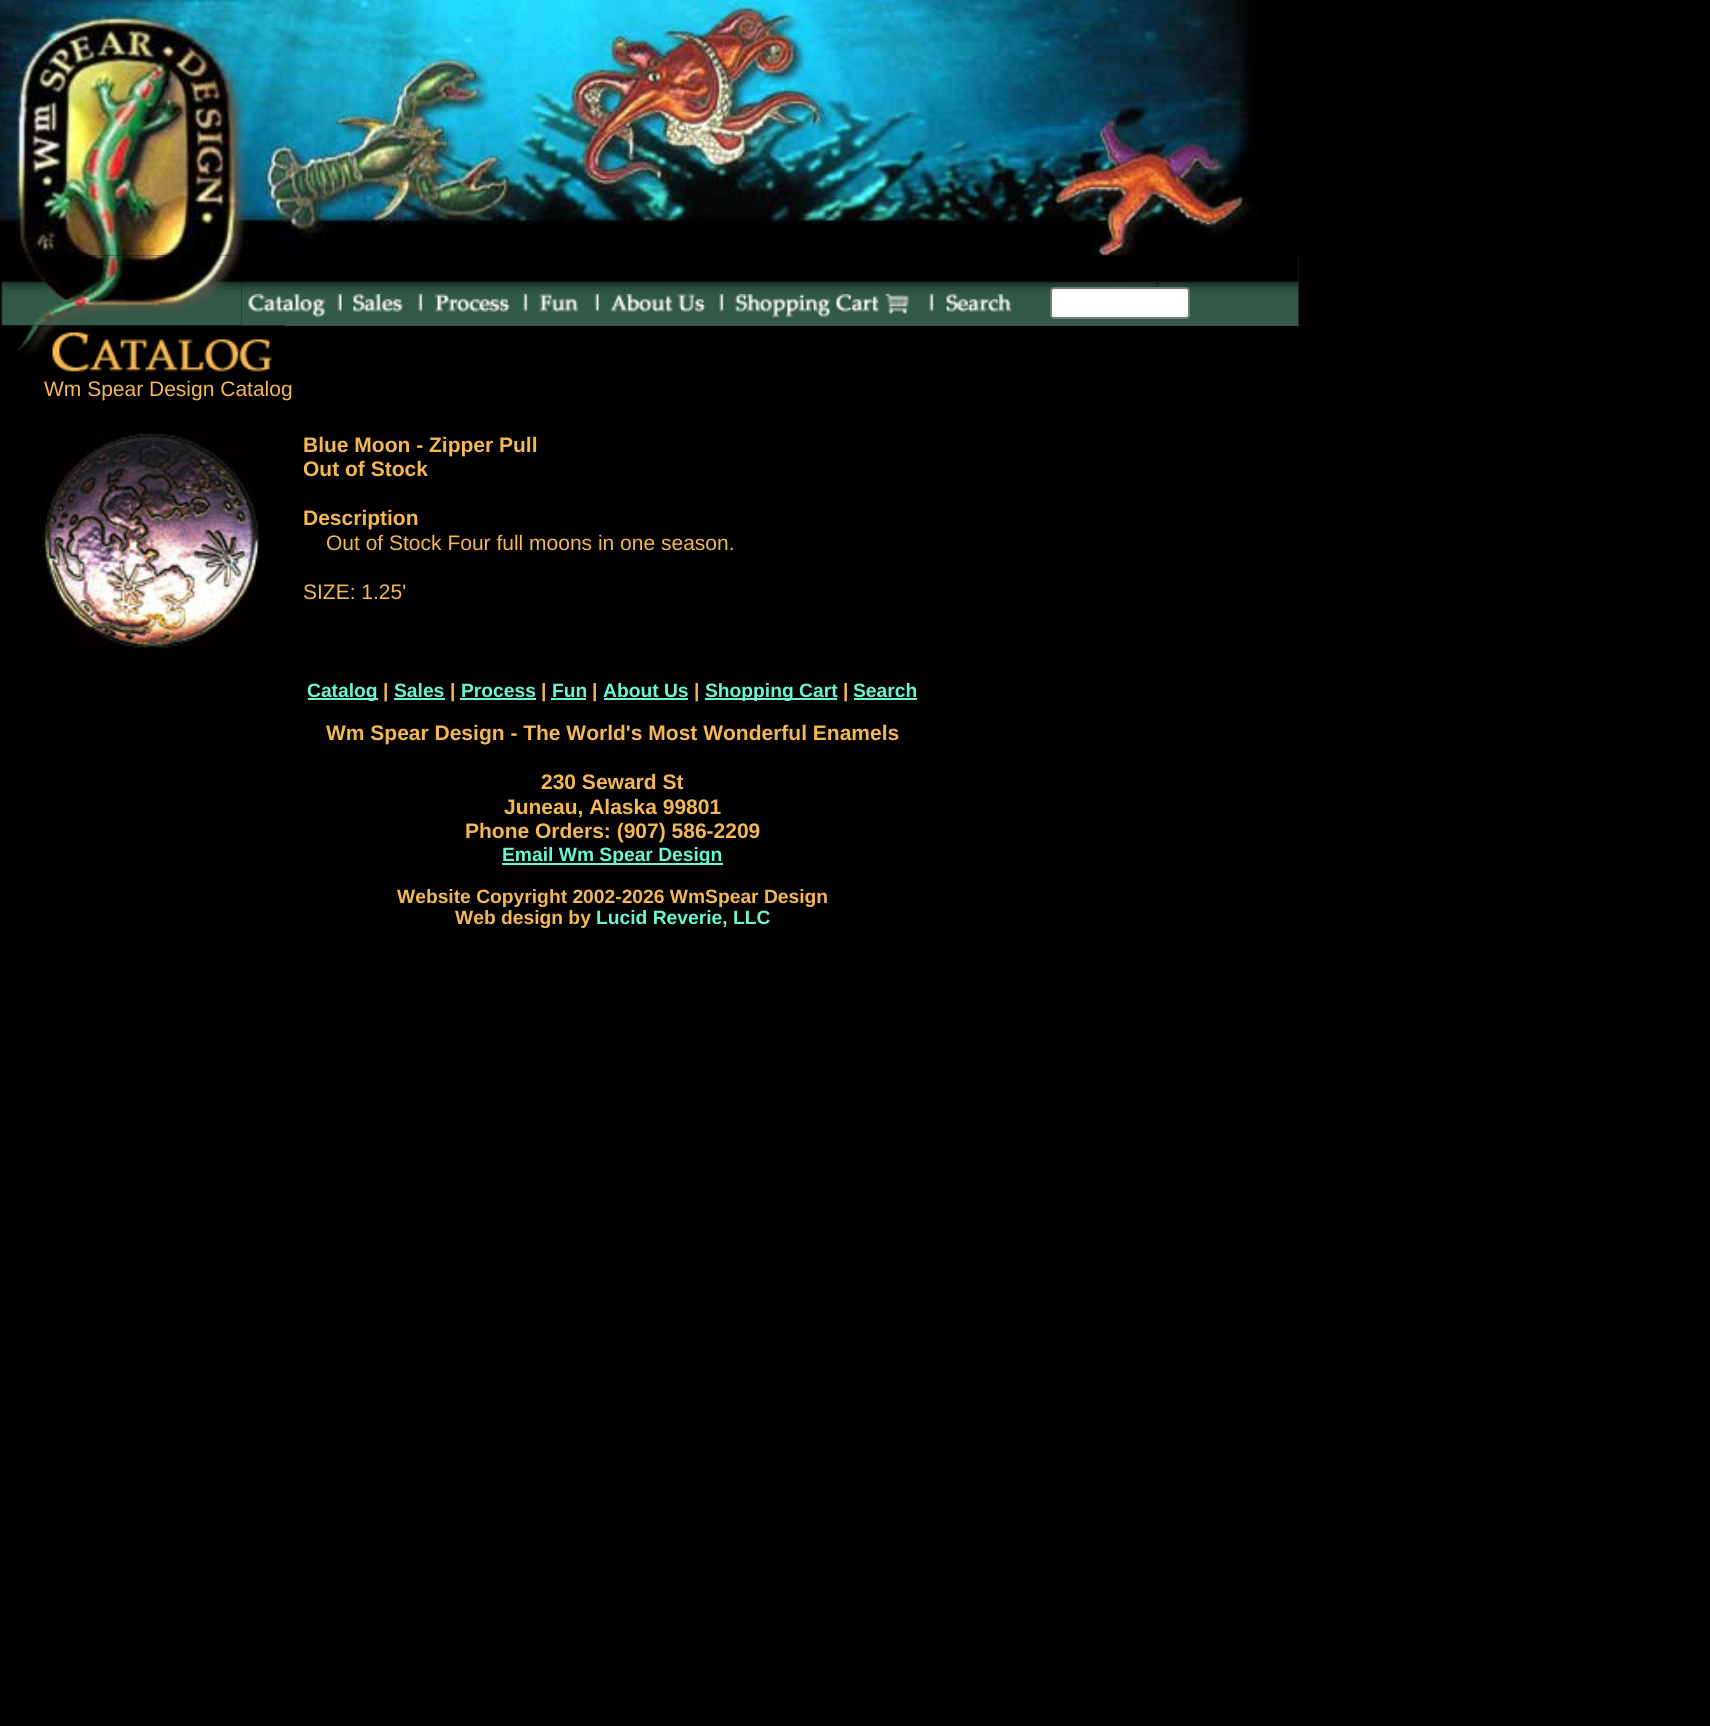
#include <cairo.h>
#include <math.h>
#include <stddef.h>

static cairo_t *c;
static void C(unsigned color){cairo_set_source_rgb(c, (color >> 16) / 255.0, (color >> 8 & 255) / 255.0, (color & 255) / 255.0);}
static void F(const char *family, double size, int italic, int bold){cairo_select_font_face(c, family, italic ? CAIRO_FONT_SLANT_ITALIC : CAIRO_FONT_SLANT_NORMAL,bold ? CAIRO_FONT_WEIGHT_BOLD : CAIRO_FONT_WEIGHT_NORMAL);cairo_set_font_size(c, size);}
static void T(double x, double y, const char *s){cairo_move_to(c, x, y);cairo_show_text(c, s);}
static void R(double x, double y, double w, double h){cairo_rectangle(c, x, y, w, h);cairo_fill(c);}
static void Q(double x, double y, double w, double h, double r){cairo_new_sub_path(c);cairo_arc(c, x + w - r, y + h - r, r, 0, M_PI / 2);cairo_arc(c, x + r, y + h - r, r, M_PI / 2, M_PI);cairo_arc(c, x + r, y + r, r, M_PI, 1.5 * M_PI);cairo_arc(c, x + w - r, y + r, r, 1.5 * M_PI, 2 * M_PI);cairo_close_path(c);}
static void I(const char *path, double x, double y, double w, double h){cairo_surface_t *image = cairo_image_surface_create_from_png(path);cairo_save(c);cairo_set_source_surface(c, image, x, y);cairo_rectangle(c, x, y, w, h);cairo_fill(c);cairo_restore(c);cairo_surface_destroy(image);}
int main(void) {
cairo_surface_t *surface = cairo_image_surface_create(CAIRO_FORMAT_RGB24, 1710, 1726);
c = cairo_create(surface);
cairo_font_options_t *options = cairo_font_options_create();
cairo_font_options_set_hint_metrics(options, CAIRO_HINT_METRICS_OFF);
cairo_font_options_set_hint_style(options, CAIRO_HINT_STYLE_NONE);
cairo_set_font_options(c, options);
cairo_set_miter_limit(c, 4);
C(0x000000);
cairo_paint(c);
I("1.png",0,0,1260,256);
I("2.png",1,255,241,71);
C(0x325847);
R(242,256,1057,70);
I("3.png",241,255,1058,39);
I("4.png",241,294,85,32);
I("5.png",337,294,5,18);
I("6.png",353,294,50,18);
I("7.png",418,294,5,18);
I("8.png",434,294,76,18);
I("7.png",523,294,5,18);
I("9.png",538,294,42,18);
I("10.png",594,294,5,18);
I("11.png",610,294,96,18);
I("7.png",719,294,5,18);
I("12.png",734,294,175,24);
I("7.png",929,294,5,18);
I("13.png",946,294,66,18);
I("14.png",1298,256,1,70);
I("15.png",1,325,285,47);
C(0xffffff);
Q(1051,288,138,30,3);
cairo_fill_preserve(c);
C(0x767676);
cairo_stroke(c);
F("Liberation Sans",21,0,0);
C(0xf6b853);
T(44,396,"Wm Spear Design Catalog");
I("16.png",43,432,216,216);
F("Liberation Sans",21,0,1);
T(303,452,"Blue Moon - Zipper Pull");
T(303,476,"Out of Stock");
T(303,525,"Description");
F("Liberation Sans",21,0,0);
T(326,550,"Out of Stock Four full moons in one season.");
T(303,599,"SIZE: 1.25'");
C(0x68f9d2);
R(308,698,70,2);
F("Liberation Sans",19.25,0,1);
T(307,697,"Catalog");
C(0xf6b853);
T(383,697,"|");
C(0x68f9d2);
T(394,697,"Sales");
R(394,698,51,2);
C(0xf6b853);
T(450,697,"|");
C(0x68f9d2);
T(461,697,"Process");
R(460,698,76,2);
C(0xf6b853);
T(541,697,"|");
C(0x68f9d2);
T(552,697,"Fun");
R(551,698,35,2);
C(0xf6b853);
T(592,697,"|");
C(0x68f9d2);
T(603,697,"About Us");
R(604,698,84,2);
C(0xf6b853);
T(694,697,"|");
C(0x68f9d2);
R(705,698,132,2);
T(705,697,"Shopping Cart");
C(0xf6b853);
T(843,697,"|");
C(0x68f9d2);
T(853,697,"Search");
R(854,698,63,2);
F("Liberation Sans",21,0,1);
C(0xf6b853);
T(326,740,"Wm Spear Design - The World's Most Wonderful Enamels");
T(541,789,"230 Seward St");
T(504,814,"Juneau, Alaska 99801");
T(465,838,"Phone Orders: (907) 586-2209");
C(0x68f9d2);
R(502,863,221,2);
F("Liberation Sans",19.25,0,1);
T(502,861,"Email Wm Spear Design");
C(0xf6b853);
T(397,903,"Website Copyright 2002-2026 WmSpear Design");
T(455,924,"Web design by");
C(0x68f9d2);
T(596,924,"Lucid Reverie, LLC");
cairo_surface_write_to_png(surface, "o.png");
cairo_font_options_destroy(options);
cairo_destroy(c);
cairo_surface_destroy(surface);
return 0;
}
